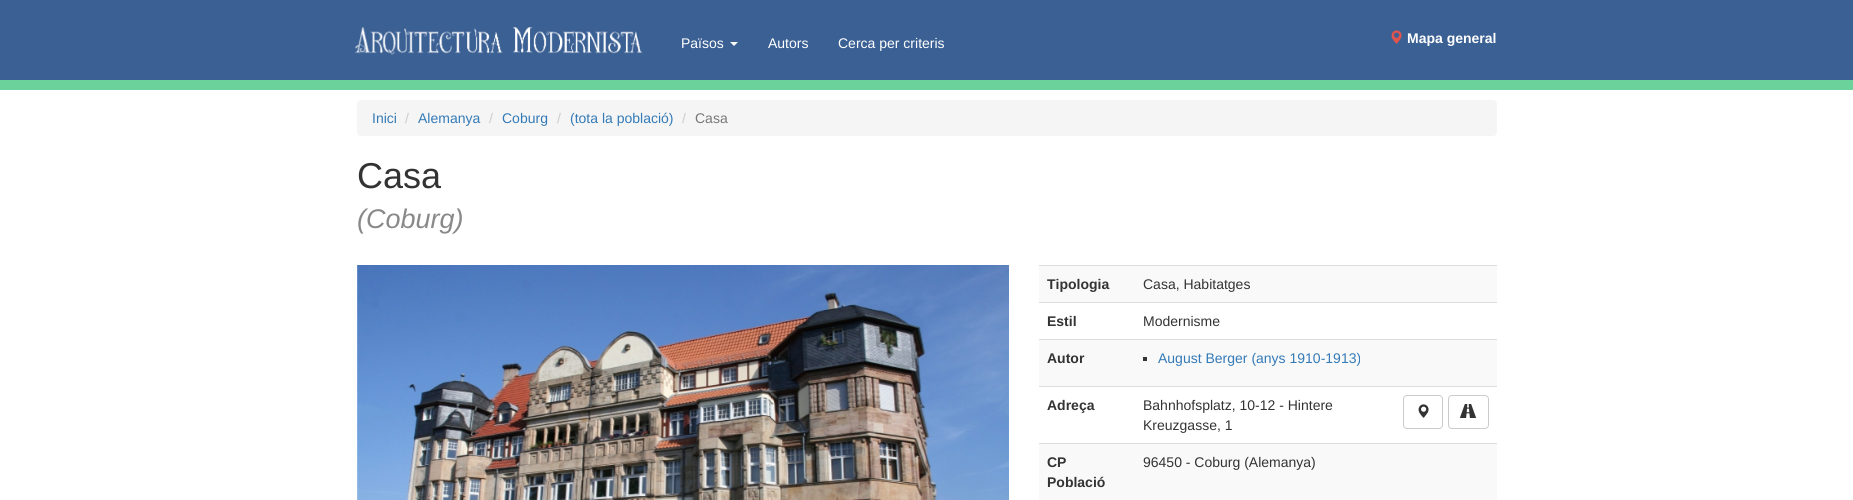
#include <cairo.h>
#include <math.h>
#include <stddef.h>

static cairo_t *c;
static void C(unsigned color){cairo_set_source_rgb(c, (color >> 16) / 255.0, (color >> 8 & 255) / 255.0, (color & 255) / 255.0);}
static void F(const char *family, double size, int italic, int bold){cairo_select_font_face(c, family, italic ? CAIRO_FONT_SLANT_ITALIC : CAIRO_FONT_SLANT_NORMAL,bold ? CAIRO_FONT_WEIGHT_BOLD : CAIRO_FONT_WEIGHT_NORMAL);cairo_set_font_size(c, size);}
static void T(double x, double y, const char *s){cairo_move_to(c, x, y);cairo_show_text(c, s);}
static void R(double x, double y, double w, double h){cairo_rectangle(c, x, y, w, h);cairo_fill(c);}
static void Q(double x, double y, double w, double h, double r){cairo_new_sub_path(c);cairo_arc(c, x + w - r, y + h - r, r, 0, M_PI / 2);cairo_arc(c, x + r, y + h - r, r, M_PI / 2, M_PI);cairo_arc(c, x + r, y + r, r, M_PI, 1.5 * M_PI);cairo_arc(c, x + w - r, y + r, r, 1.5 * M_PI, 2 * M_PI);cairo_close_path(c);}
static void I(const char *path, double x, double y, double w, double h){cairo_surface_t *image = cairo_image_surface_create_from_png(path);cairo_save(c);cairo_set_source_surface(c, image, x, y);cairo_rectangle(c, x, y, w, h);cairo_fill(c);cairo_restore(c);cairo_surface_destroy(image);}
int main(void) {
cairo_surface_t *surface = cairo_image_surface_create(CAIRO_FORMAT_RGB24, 1853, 500);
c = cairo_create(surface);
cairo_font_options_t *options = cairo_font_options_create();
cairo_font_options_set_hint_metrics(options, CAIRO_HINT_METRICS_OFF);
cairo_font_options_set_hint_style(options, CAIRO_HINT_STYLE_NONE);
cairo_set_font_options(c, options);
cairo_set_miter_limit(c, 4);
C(0xffffff);
cairo_paint(c);
C(0x3b6094);
R(0,0,1853,80);
C(0x6bd29b);
R(0,80,1853,10);
I("1.png",354,27,289,28);
F("Liberation Sans",14,0,0);
C(0xffffff);
T(681,48,"Països");
cairo_new_path(c);
cairo_move_to(c,730,42);
cairo_line_to(c,738,42);
cairo_line_to(c,734,46);
cairo_close_path(c);
cairo_fill(c);
T(768,48,"Autors");
T(838,48,"Cerca per criteris");
I("2.png",1391,30,11,14);
F("Liberation Sans",14,0,1);
T(1407,43,"Mapa general");
C(0xf5f5f5);
Q(357,100,1140,36,4);
cairo_fill(c);
F("Liberation Sans",14,0,0);
C(0x337ab7);
T(372,123,"Inici");
C(0xcccccc);
T(405,123,"/");
C(0x337ab7);
T(418,123,"Alemanya");
C(0xcccccc);
T(489,123,"/");
C(0x337ab7);
T(502,123,"Coburg");
C(0xcccccc);
T(557,123,"/");
C(0x337ab7);
T(570,123,"(tota la població)");
C(0xcccccc);
T(682,123,"/");
C(0x777777);
T(695,123,"Casa");
F("Liberation Sans",36,0,0);
C(0x333333);
T(357,188,"Casa");
F("Liberation Sans",27,1,0);
C(0x898989);
T(357,228,"(Coburg)");
I("3.png",357,265,652,235);
C(0xf9f9f9);
R(1039,266,458,36);
F("Liberation Sans",14,0,1);
C(0x333333);
T(1047,289,"Tipologia");
C(0xdddddd);
R(1039,265,458,1);
F("Liberation Sans",14,0,0);
C(0x333333);
T(1143,289,"Casa, Habitatges");
F("Liberation Sans",14,0,1);
T(1047,326,"Estil");
C(0xdddddd);
R(1039,302,458,1);
F("Liberation Sans",14,0,0);
C(0x333333);
T(1143,326,"Modernisme");
C(0xf9f9f9);
R(1039,340,458,46);
F("Liberation Sans",14,0,1);
C(0x333333);
T(1047,363,"Autor");
C(0xdddddd);
R(1039,339,458,1);
C(0x333333);
R(1143,357,4,4);
F("Liberation Sans",14,0,0);
C(0x337ab7);
T(1158,363,"August Berger (anys 1910-1913)");
F("Liberation Sans",14,0,1);
C(0x333333);
T(1047,410,"Adreça");
C(0xdddddd);
R(1039,386,458,1);
F("Liberation Sans",14,0,0);
C(0x333333);
T(1143,410,"Bahnhofsplatz, 10-12 - Hintere");
Q(1403.5,395.5,39,33,3.5);
C(0xcccccc);
cairo_set_line_width(c,1);
cairo_stroke(c);
I("4.png",1418,404,11,14);
Q(1448.5,395.5,40,33,3.5);
cairo_stroke(c);
I("5.png",1459,404,18,14);
C(0x333333);
T(1143,430,"Kreuzgasse, 1");
C(0xf9f9f9);
R(1039,444,458,56);
F("Liberation Sans",14,0,1);
C(0x333333);
T(1047,467,"CP");
T(1047,487,"Població");
C(0xdddddd);
R(1039,443,458,1);
F("Liberation Sans",14,0,0);
C(0x333333);
T(1143,467,"96450 - Coburg (Alemanya)");
cairo_surface_write_to_png(surface, "o.png");
cairo_font_options_destroy(options);
cairo_destroy(c);
cairo_surface_destroy(surface);
return 0;
}
